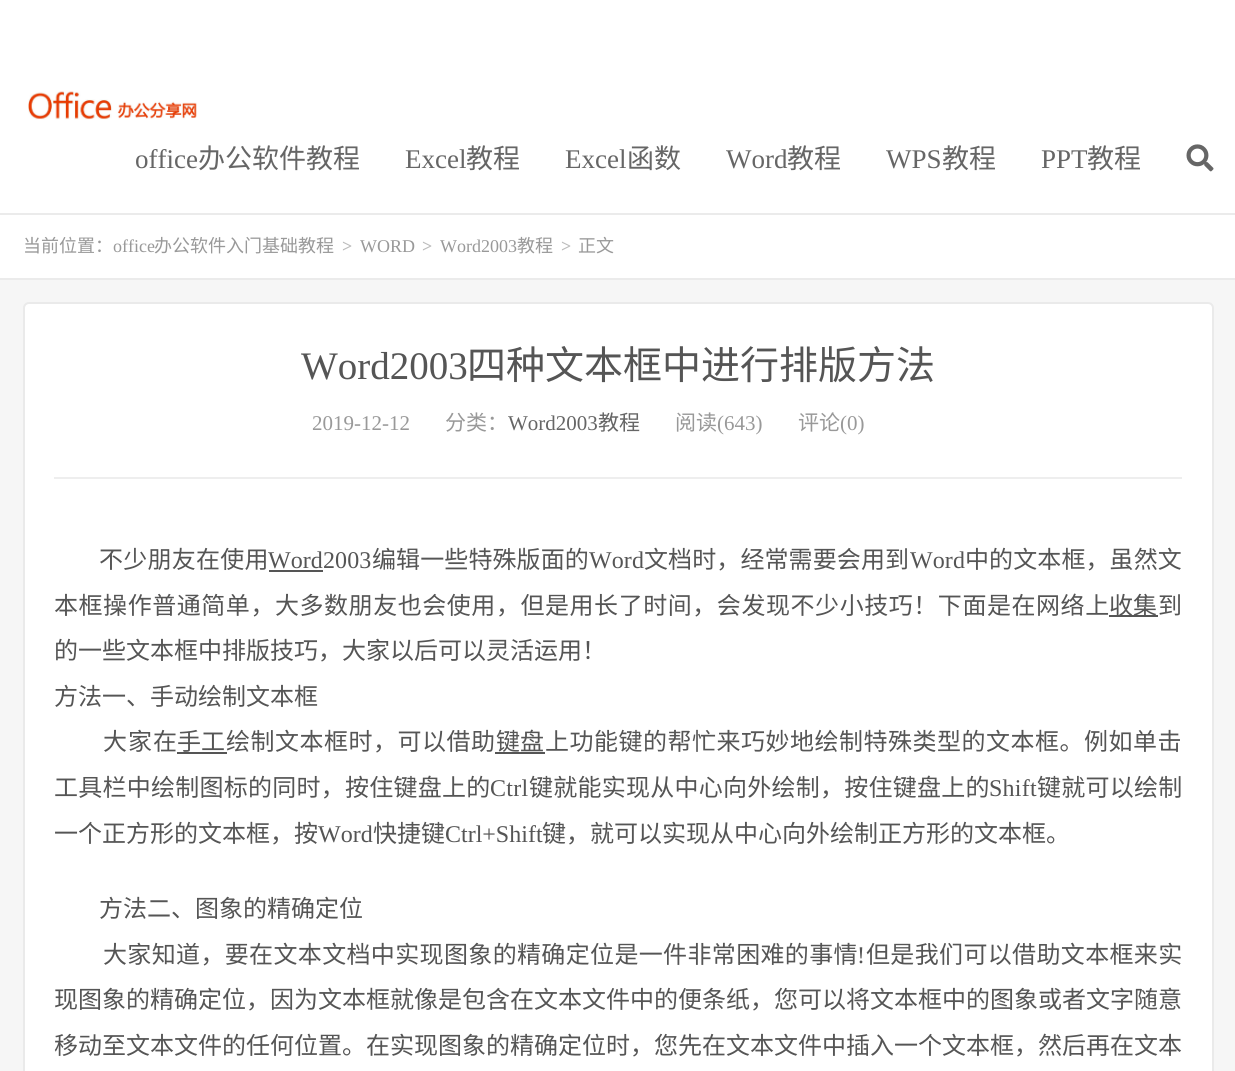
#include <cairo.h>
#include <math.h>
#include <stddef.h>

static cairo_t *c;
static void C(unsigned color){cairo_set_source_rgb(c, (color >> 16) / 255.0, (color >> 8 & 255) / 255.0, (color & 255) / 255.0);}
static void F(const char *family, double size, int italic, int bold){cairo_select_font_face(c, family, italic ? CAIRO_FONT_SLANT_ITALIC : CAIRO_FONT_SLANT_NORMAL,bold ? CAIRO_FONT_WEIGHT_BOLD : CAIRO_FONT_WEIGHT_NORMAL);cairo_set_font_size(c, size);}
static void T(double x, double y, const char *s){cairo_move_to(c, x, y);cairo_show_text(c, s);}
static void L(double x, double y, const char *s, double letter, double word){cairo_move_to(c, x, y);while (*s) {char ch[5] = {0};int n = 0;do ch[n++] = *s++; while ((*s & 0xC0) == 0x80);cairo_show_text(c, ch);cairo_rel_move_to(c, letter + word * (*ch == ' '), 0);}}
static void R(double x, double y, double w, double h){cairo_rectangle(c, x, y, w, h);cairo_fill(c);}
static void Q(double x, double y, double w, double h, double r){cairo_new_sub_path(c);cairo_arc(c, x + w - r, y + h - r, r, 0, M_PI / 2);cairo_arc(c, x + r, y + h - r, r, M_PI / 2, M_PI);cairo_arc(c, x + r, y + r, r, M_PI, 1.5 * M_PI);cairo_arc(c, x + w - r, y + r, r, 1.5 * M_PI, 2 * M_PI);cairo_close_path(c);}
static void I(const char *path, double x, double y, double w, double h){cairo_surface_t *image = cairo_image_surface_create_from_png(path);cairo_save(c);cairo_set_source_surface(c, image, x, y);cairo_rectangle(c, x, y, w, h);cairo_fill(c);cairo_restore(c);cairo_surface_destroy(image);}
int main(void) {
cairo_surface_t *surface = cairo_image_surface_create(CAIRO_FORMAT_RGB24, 1235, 1071);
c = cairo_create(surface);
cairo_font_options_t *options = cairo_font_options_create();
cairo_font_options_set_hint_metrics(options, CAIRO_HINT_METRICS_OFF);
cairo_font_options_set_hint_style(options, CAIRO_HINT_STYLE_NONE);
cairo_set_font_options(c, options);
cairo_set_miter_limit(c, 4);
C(0xf6f6f6);
cairo_paint(c);
C(0xffffff);
R(0,0,1235,213);
C(0xebebeb);
R(0,213,1235,2);
I("1.png",28,91,169,29);
F("Liberation Serif",27,0,0);
C(0x666666);
T(135,168,"office");
F("Noto Sans CJK SC",27,0,0);
T(198,168,"办公软件教程");
F("Liberation Serif",27,0,0);
T(405,168,"Excel");
F("Noto Sans CJK SC",27,0,0);
T(466,168,"教程");
F("Liberation Serif",27,0,0);
T(565,168,"Excel");
F("Noto Sans CJK SC",27,0,0);
T(627,168,"函数");
F("Liberation Serif",27,0,0);
T(726,168,"Word");
F("Noto Sans CJK SC",27,0,0);
T(787,168,"教程");
F("Liberation Serif",27,0,0);
T(886,168,"WPS");
F("Noto Sans CJK SC",27,0,0);
T(942,168,"教程");
F("Liberation Serif",27,0,0);
T(1041,168,"PPT");
F("Noto Sans CJK SC",27,0,0);
T(1087,168,"教程");
I("2.png",1186,144,28,28);
C(0xffffff);
R(0,215,1235,63);
C(0xebebeb);
R(0,278,1235,2);
F("Noto Sans CJK SC",18,0,0);
C(0x999999);
T(23,252,"当前位置：");
F("Liberation Serif",18,0,0);
T(113,252,"office");
F("Noto Sans CJK SC",18,0,0);
T(154,252,"办公软件入门基础教程");
F("Liberation Serif",18,0,1);
C(0xbbbbbb);
T(342,252,">");
F("Liberation Serif",18,0,0);
C(0x999999);
T(360,252,"WORD");
F("Liberation Serif",18,0,1);
C(0xbbbbbb);
T(422,252,">");
F("Liberation Serif",18,0,0);
C(0x999999);
T(440,252,"Word2003");
F("Noto Sans CJK SC",18,0,0);
T(517,252,"教程");
F("Liberation Serif",18,0,1);
C(0xbbbbbb);
T(561,252,">");
F("Noto Sans CJK SC",18,0,0);
C(0x999999);
T(578,252,"正文");
C(0xffffff);
Q(24,303,1189,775,5);
cairo_fill_preserve(c);
C(0xeaeaea);
cairo_stroke(c);
C(0xeeeeee);
R(54,477,1128,2);
F("Liberation Serif",39,0,0);
C(0x555555);
T(301,379,"Word2003");
F("Noto Sans CJK SC",39,0,0);
T(467,379,"四种文本框中进行排版方法");
F("Liberation Serif",21,0,0);
C(0x999999);
T(312,430,"2019-12-12");
F("Noto Sans CJK SC",21,0,0);
T(445,430,"分类：");
F("Liberation Serif",21,0,0);
C(0x666666);
T(508,430,"Word2003");
F("Noto Sans CJK SC",21,0,0);
T(598,430,"教程");
C(0x999999);
T(675,430,"阅读");
F("Liberation Serif",21,0,0);
T(717,430,"(643)");
F("Noto Sans CJK SC",21,0,0);
T(798,430,"评论");
F("Liberation Serif",21,0,0);
T(840,430,"(0)");
F("Noto Sans CJK SC",24,0,0);
C(0x555555);
L(99,568,"不少朋友在使用",.25,0);
F("Liberation Serif",24,0,0);
T(268,568,"Word");
R(269,570,54,2);
L(323,568,"2003",.1,0);
F("Noto Sans CJK SC",24,0,0);
L(372,568,"编辑一些特殊版面的",.1,0);
F("Liberation Serif",24,0,0);
L(589,568,"Word",.1,0);
F("Noto Sans CJK SC",24,0,0);
L(644,568,"文档时，经常需要会用到",.1,0);
F("Liberation Serif",24,0,0);
L(910,568,"Word",.1,0);
F("Noto Sans CJK SC",24,0,0);
L(965,568,"中的文本框，虽然文",.1,0);
L(54,614,"本框操作普通简单，大多数朋友也会使用，但是用长了时间，会发现不少小技巧！下面是在网络上",.55,0);
R(1109,615,49,2);
T(1109,614,"收集");
T(1158,614,"到");
T(54,659,"的一些文本框中排版技巧，大家以后可以灵活运用！");
T(54,705,"方法一、手动绘制文本框");
L(103,750,"大家在",1,0);
T(177,750,"手工");
R(177,752,50,2);
L(226,750,"绘制文本框时，可以借助",.5,0);
T(496,750,"键盘");
R(495,752,50,2);
L(545,750,"上功能键的帮忙来巧妙地绘制特殊类型的文本框。例如单击",.5,0);
L(54,796,"工具栏中绘制图标的同时，按住键盘上的",.25,0);
F("Liberation Serif",24,0,0);
L(490,796,"Ctrl",.25,0);
F("Noto Sans CJK SC",24,0,0);
L(529,796,"键就能实现从中心向外绘制，按住键盘上的",.25,0);
F("Liberation Serif",24,0,0);
L(989,796,"Shift",.25,0);
F("Noto Sans CJK SC",24,0,0);
L(1037,796,"键就可以绘制",.25,0);
T(54,842,"一个正方形的文本框，按");
F("Liberation Serif",24,0,0);
T(318,842,"Word");
F("Noto Sans CJK SC",24,0,0);
T(373,842,"快捷键");
F("Liberation Serif",24,0,0);
T(445,842,"Ctrl+Shift");
F("Noto Sans CJK SC",24,0,0);
T(542,842,"键，就可以实现从中心向外绘制正方形的文本框。");
T(99,917,"方法二、图象的精确定位");
L(103,963,"大家知道，要在文本文档中实现图象的精确定位是一件非常困难的事情",.35,0);
F("Liberation Serif",24,0,0);
L(857,963,"!",.35,0);
F("Noto Sans CJK SC",24,0,0);
L(866,963,"但是我们可以借助文本框来实",.35,0);
T(54,1008,"现图象的精确定位，因为文本框就像是包含在文本文件中的便条纸，您可以将文本框中的图象或者文字随意");
T(54,1054,"移动至文本文件的任何位置。在实现图象的精确定位时，您先在文本文件中插入一个文本框，然后再在文本");
cairo_surface_write_to_png(surface, "o.png");
cairo_font_options_destroy(options);
cairo_destroy(c);
cairo_surface_destroy(surface);
return 0;
}
